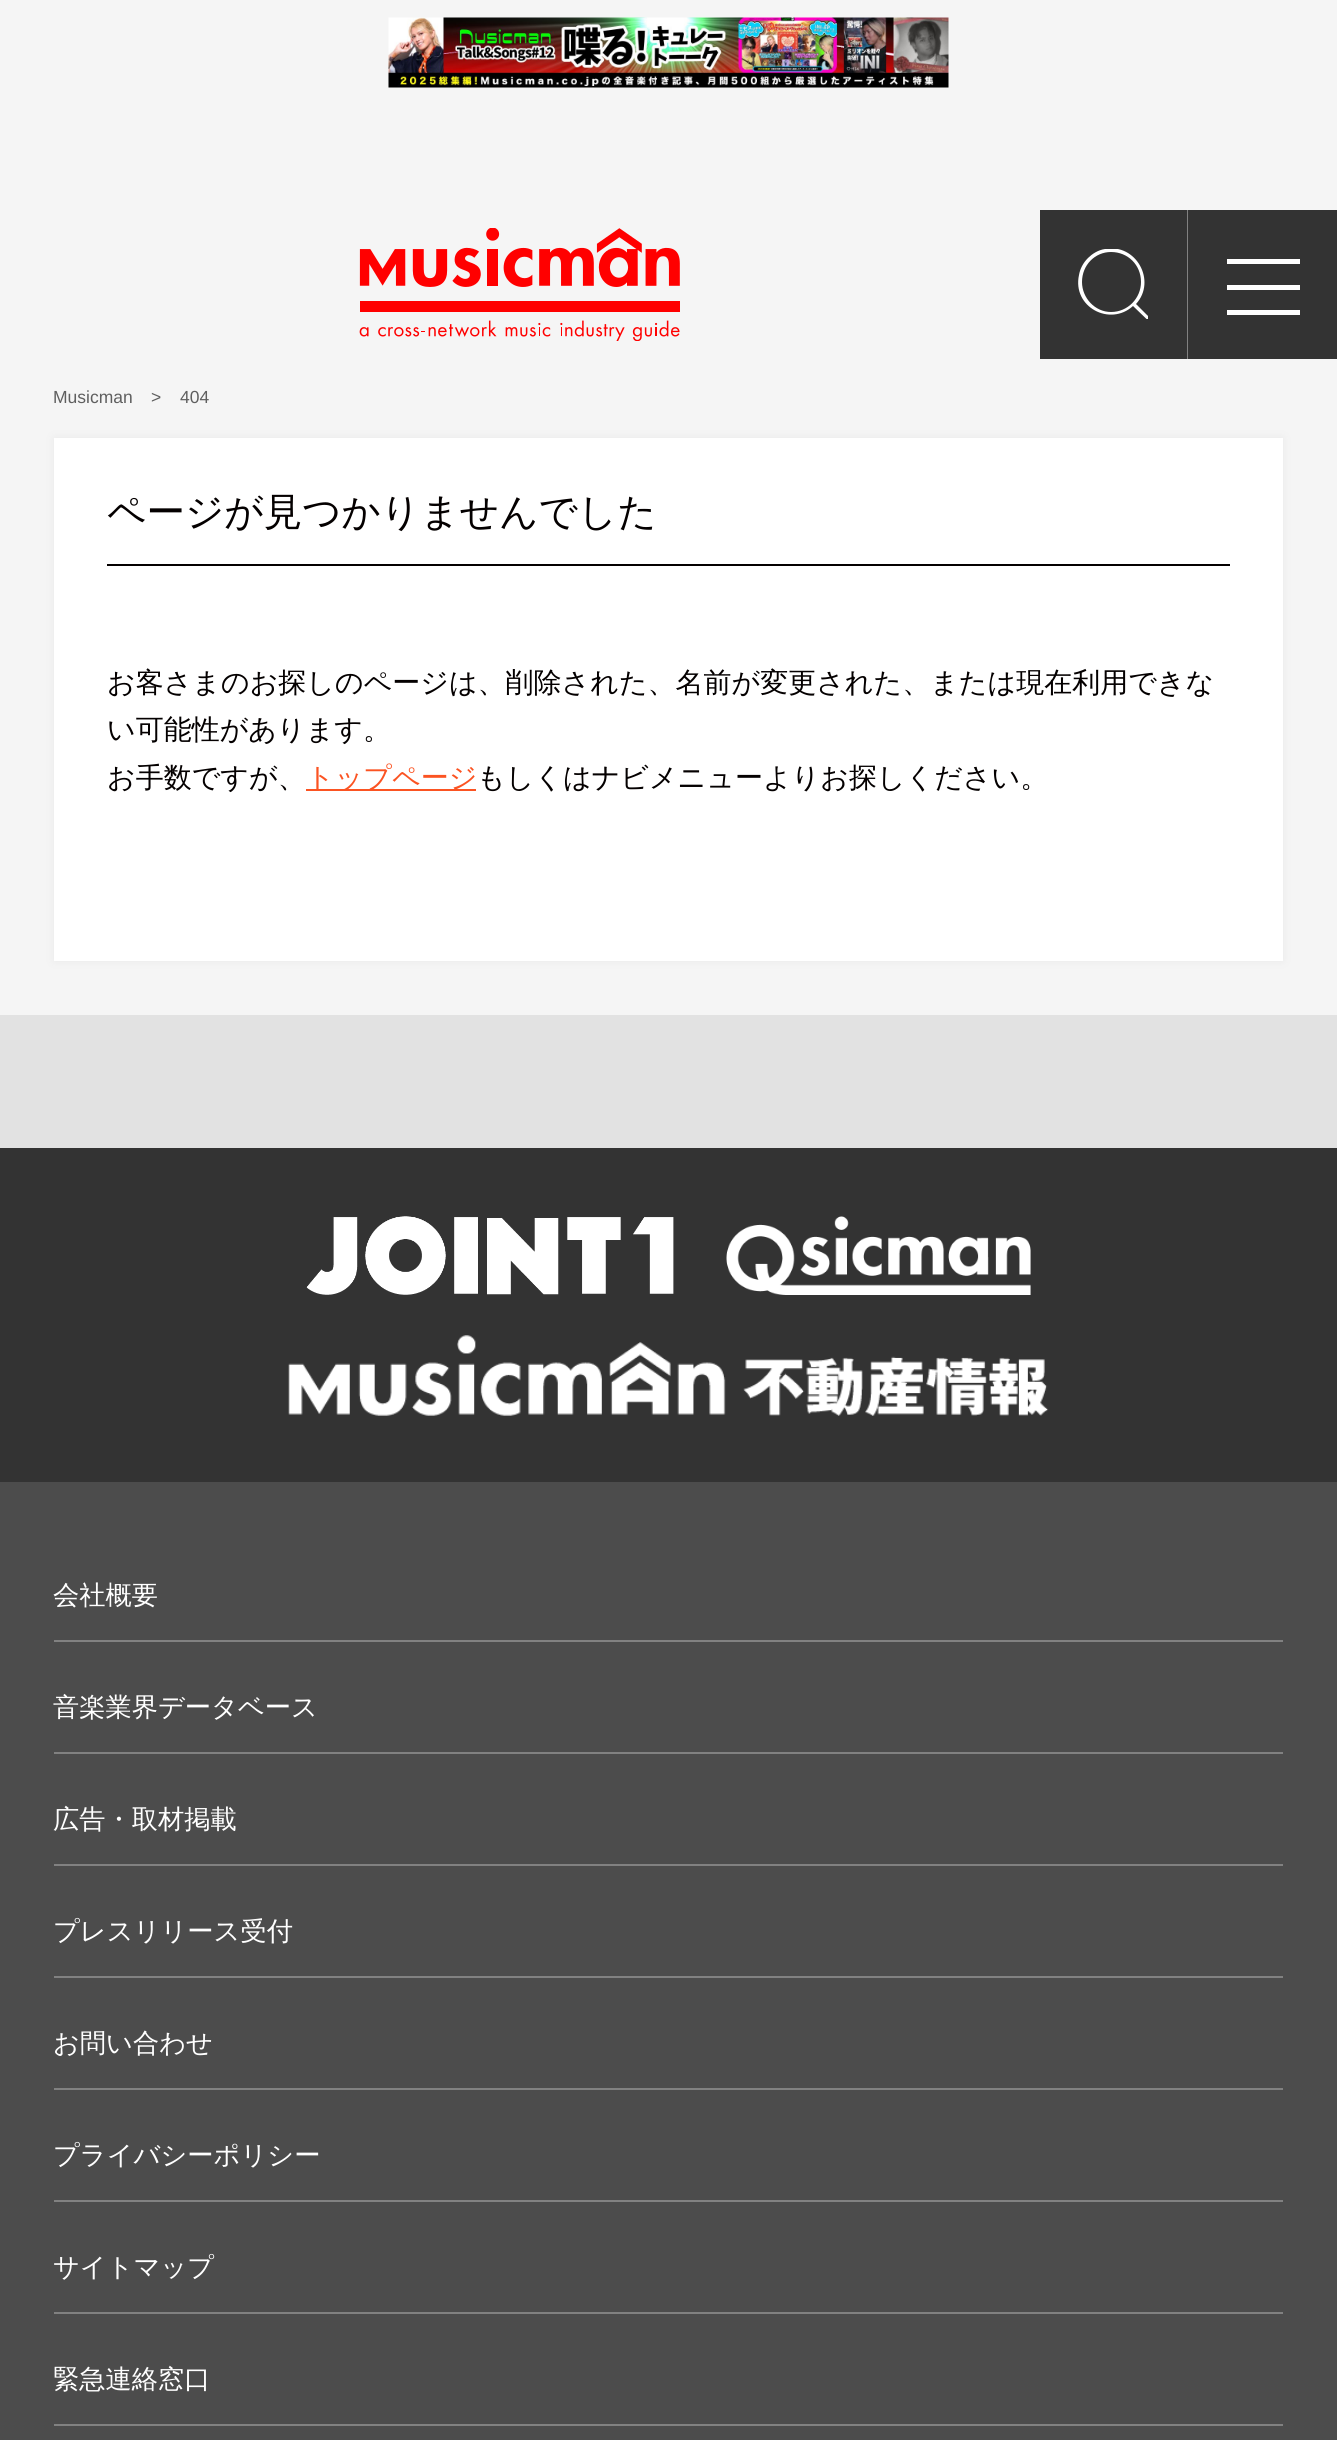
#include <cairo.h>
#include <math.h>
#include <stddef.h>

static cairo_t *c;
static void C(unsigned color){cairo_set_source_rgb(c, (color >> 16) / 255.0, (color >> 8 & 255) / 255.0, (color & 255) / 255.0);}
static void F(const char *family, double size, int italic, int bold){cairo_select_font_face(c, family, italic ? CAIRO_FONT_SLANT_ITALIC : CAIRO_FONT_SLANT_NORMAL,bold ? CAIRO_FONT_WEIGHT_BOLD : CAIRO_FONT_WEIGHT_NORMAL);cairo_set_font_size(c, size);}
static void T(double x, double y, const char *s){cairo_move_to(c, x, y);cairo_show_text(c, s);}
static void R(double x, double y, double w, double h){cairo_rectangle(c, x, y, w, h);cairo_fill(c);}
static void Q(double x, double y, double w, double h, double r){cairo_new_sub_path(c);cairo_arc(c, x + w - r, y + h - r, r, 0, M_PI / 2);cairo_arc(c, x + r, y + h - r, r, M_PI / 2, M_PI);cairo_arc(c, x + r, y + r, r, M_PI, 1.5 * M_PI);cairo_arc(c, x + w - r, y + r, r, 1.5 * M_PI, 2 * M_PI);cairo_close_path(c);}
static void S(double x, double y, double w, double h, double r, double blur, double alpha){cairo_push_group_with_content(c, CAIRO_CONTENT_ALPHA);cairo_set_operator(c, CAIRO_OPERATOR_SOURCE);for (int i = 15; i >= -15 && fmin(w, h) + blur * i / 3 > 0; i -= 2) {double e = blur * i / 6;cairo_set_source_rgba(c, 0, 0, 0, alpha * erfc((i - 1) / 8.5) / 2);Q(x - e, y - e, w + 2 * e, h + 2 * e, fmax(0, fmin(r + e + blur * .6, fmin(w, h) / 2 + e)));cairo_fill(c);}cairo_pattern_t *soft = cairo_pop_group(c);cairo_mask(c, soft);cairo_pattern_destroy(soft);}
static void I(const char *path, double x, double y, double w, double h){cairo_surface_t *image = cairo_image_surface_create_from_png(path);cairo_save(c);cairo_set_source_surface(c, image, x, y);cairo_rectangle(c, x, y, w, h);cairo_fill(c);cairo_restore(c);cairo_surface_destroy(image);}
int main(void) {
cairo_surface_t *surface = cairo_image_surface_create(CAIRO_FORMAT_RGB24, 1337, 2440);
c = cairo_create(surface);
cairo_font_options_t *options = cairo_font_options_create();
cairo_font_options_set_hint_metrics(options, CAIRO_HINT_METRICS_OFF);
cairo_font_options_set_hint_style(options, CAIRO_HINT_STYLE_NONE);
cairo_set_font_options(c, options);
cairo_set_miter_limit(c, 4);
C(0xf5f5f5);
cairo_paint(c);
I("1.png",388,17,561,71);
I("2.png",359,228,321,113);
C(0x333333);
R(1040,210,147,149);
C(0x818181);
R(1187,210,1,149);
cairo_save(c);
cairo_rectangle(c,1078,249,70,70);
cairo_clip(c);
C(0xffffff);
cairo_set_fill_rule(c,CAIRO_FILL_RULE_EVEN_ODD);
cairo_new_path(c);
cairo_move_to(c,1133,306);
cairo_curve_to(c,1110,327,1072,307,1079,275);
cairo_curve_to(c,1080,269,1083,263,1088,258);
cairo_curve_to(c,1092,254,1098,250,1105,249);
cairo_curve_to(c,1136,243,1157,281,1136,304);
cairo_line_to(c,1162,330);
cairo_line_to(c,1160,332);
cairo_close_path(c);
cairo_move_to(c,1111,252);
cairo_curve_to(c,1128,252,1141,265,1141,282);
cairo_curve_to(c,1141,298,1128,312,1111,312);
cairo_curve_to(c,1095,312,1082,298,1082,282);
cairo_curve_to(c,1082,265,1095,252,1111,252);
cairo_close_path(c);
cairo_fill(c);
cairo_restore(c);
C(0x333333);
R(1188,210,149,149);
C(0xffffff);
R(1227,259,73,5);
R(1227,285,73,5);
R(1227,310,73,5);
F("Liberation Sans",17.5,0,0);
C(0x5f5f5f);
T(53,403,"Musicman");
T(151,403,">");
T(180,403,"404");
C(0xdedede);
S(54,438,1229,523,0,4.5,.5);
C(0xffffff);
R(54,438,1229,523);
F("WenQuanYi Zen Hei Medium",38.5,0,0);
C(0x040000);
T(107,525,"ページが見つかりませんでした");
R(107,564,1123,2);
F("WenQuanYi Zen Hei Medium",28,0,0);
T(107,692,"お客さまのお探しのページは、削除された、名前が変更された、または現在利用できな");
T(107,739,"い可能性があります。");
T(107,787,"お手数ですが、");
C(0xfb5322);
R(306,789,170,2);
T(306,787,"トップページ");
C(0x040000);
T(477,787,"もしくはナビメニューよりお探しください。");
C(0xe2e2e2);
R(0,1015,1337,133);
C(0x333333);
R(0,1148,1337,334);
I("3.png",306,1216,368,79);
I("4.png",726,1216,305,79);
I("5.png",288,1335,761,81);
C(0x4c4c4c);
R(0,1482,1337,958);
C(0x818181);
R(54,1640,1229,2);
F("WenQuanYi Zen Hei Medium",26.25,0,0);
C(0xffffff);
T(53,1604,"会社概要");
C(0x818181);
R(54,1752,1229,2);
C(0xffffff);
T(53,1716,"音楽業界データベース");
C(0x818181);
R(54,1864,1229,2);
C(0xffffff);
T(53,1828,"広告・取材掲載");
C(0x818181);
R(54,1976,1229,2);
C(0xffffff);
T(53,1940,"プレスリリース受付");
C(0x818181);
R(54,2088,1229,2);
C(0xffffff);
T(53,2052,"お問い合わせ");
C(0x818181);
R(54,2200,1229,2);
C(0xffffff);
T(53,2164,"プライバシーポリシー");
C(0x818181);
R(54,2312,1229,2);
C(0xffffff);
T(53,2276,"サイトマップ");
C(0x818181);
R(54,2424,1229,2);
C(0xffffff);
T(53,2388,"緊急連絡窓口");
cairo_surface_write_to_png(surface, "o.png");
cairo_font_options_destroy(options);
cairo_destroy(c);
cairo_surface_destroy(surface);
return 0;
}
